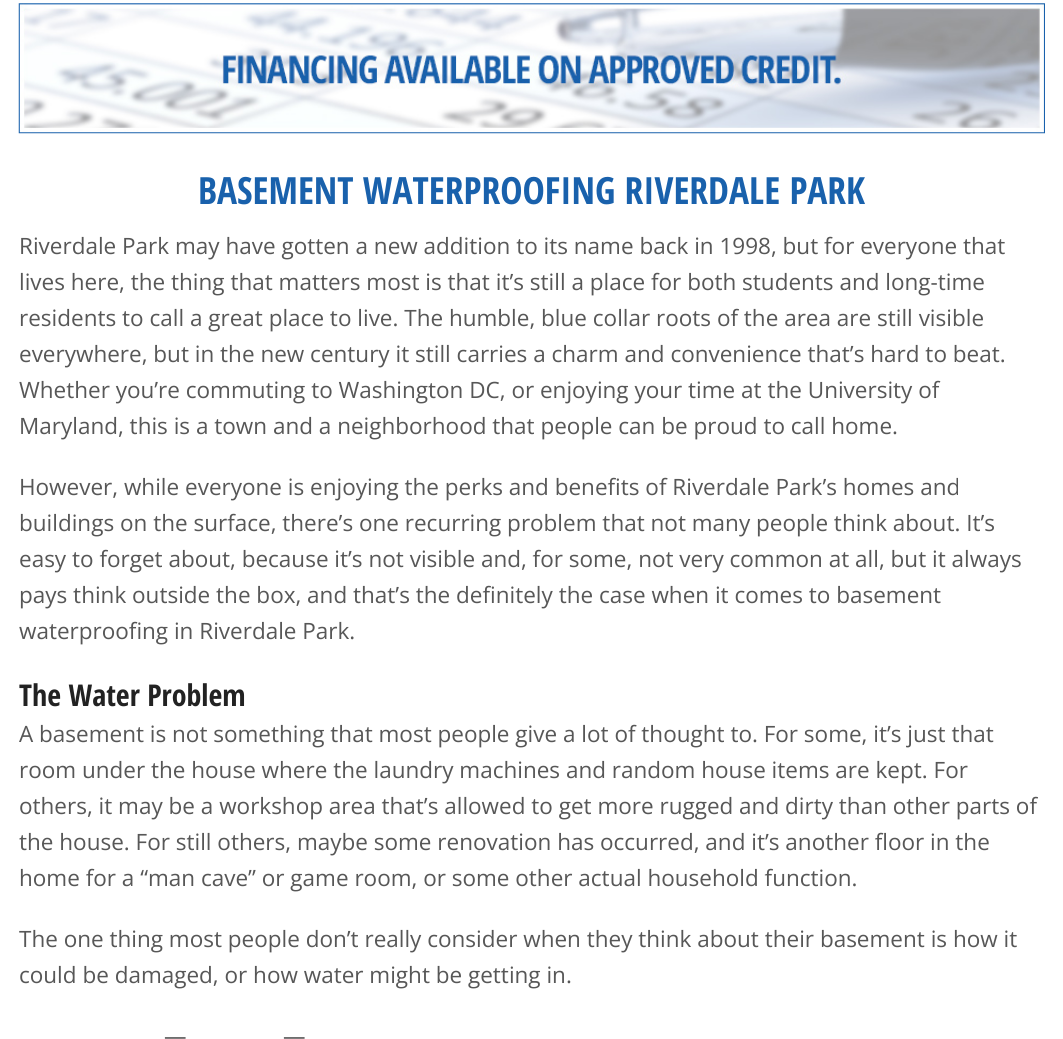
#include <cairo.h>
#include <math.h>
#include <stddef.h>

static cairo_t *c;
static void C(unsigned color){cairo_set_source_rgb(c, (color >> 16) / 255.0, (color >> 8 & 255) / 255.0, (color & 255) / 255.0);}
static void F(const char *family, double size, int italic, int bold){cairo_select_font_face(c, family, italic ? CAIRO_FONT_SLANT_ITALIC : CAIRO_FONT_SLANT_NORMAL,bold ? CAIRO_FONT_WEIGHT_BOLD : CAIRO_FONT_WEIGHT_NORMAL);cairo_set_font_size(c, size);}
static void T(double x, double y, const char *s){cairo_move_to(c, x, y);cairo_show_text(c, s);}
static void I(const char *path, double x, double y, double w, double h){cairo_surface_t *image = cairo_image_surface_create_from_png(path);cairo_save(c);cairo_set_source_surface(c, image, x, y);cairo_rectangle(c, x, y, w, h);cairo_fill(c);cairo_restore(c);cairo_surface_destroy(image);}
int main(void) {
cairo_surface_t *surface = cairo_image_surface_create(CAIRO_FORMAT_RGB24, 1063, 1039);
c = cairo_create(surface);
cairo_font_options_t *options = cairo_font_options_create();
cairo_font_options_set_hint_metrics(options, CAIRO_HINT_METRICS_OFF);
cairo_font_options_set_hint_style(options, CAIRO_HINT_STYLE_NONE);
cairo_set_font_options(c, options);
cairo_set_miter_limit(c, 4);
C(0xffffff);
cairo_paint(c);
I("1.png",18,3,1027,131);
F("Open Sans Condensed",37.5,0,1);
C(0x1961ac);
T(198,204,"BASEMENT WATERPROOFING RIVERDALE PARK");
F("Open Sans",22.5,0,0);
C(0x575757);
T(19,254,"Riverdale Park may have gotten a new addition to its name back in 1998, but for everyone that");
T(19,290,"lives here, the thing that matters most is that it’s still a place for both students and long-time");
T(19,326,"residents to call a great place to live. The humble, blue collar roots of the area are still visible");
T(19,362,"everywhere, but in the new century it still carries a charm and convenience that’s hard to beat.");
T(19,398,"Whether you’re commuting to Washington DC, or enjoying your time at the University of");
T(19,434,"Maryland, this is a town and a neighborhood that people can be proud to call home.");
T(19,495,"However, while everyone is enjoying the perks and benefits of Riverdale Park’s homes and");
T(19,531,"buildings on the surface, there’s one recurring problem that not many people think about. It’s");
T(19,567,"easy to forget about, because it’s not visible and, for some, not very common at all, but it always");
T(19,603,"pays think outside the box, and that’s the definitely the case when it comes to basement");
T(19,639,"waterproofing in Riverdale Park.");
F("Open Sans Condensed",30,0,1);
C(0x222222);
T(19,706,"The Water Problem");
F("Open Sans",22.5,0,0);
C(0x575757);
T(19,742,"A basement is not something that most people give a lot of thought to. For some, it’s just that");
T(19,778,"room under the house where the laundry machines and random house items are kept. For");
T(19,814,"others, it may be a workshop area that’s allowed to get more rugged and dirty than other parts of");
T(19,850,"the house. For still others, maybe some renovation has occurred, and it’s another floor in the");
T(19,886,"home for a “man cave” or game room, or some other actual household function.");
T(19,947,"The one thing most people don’t really consider when they think about their basement is how it");
T(19,983,"could be damaged, or how water might be getting in.");
T(164,1044,"—");
T(283,1044,"—");
cairo_surface_write_to_png(surface, "o.png");
cairo_font_options_destroy(options);
cairo_destroy(c);
cairo_surface_destroy(surface);
return 0;
}
